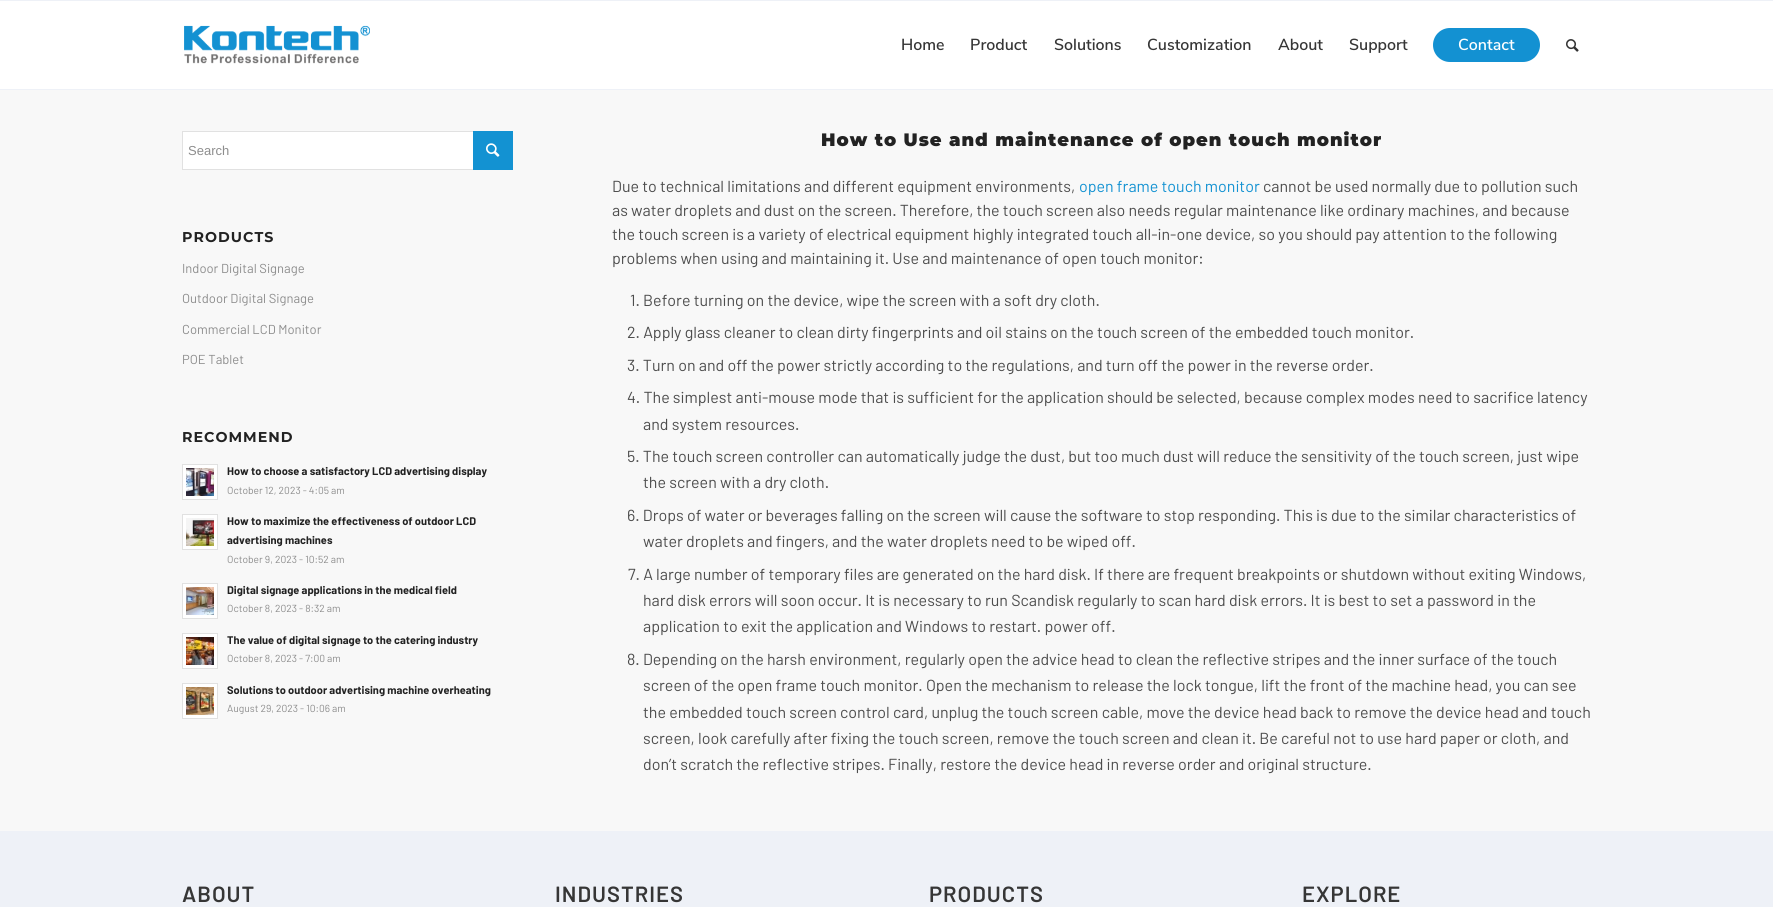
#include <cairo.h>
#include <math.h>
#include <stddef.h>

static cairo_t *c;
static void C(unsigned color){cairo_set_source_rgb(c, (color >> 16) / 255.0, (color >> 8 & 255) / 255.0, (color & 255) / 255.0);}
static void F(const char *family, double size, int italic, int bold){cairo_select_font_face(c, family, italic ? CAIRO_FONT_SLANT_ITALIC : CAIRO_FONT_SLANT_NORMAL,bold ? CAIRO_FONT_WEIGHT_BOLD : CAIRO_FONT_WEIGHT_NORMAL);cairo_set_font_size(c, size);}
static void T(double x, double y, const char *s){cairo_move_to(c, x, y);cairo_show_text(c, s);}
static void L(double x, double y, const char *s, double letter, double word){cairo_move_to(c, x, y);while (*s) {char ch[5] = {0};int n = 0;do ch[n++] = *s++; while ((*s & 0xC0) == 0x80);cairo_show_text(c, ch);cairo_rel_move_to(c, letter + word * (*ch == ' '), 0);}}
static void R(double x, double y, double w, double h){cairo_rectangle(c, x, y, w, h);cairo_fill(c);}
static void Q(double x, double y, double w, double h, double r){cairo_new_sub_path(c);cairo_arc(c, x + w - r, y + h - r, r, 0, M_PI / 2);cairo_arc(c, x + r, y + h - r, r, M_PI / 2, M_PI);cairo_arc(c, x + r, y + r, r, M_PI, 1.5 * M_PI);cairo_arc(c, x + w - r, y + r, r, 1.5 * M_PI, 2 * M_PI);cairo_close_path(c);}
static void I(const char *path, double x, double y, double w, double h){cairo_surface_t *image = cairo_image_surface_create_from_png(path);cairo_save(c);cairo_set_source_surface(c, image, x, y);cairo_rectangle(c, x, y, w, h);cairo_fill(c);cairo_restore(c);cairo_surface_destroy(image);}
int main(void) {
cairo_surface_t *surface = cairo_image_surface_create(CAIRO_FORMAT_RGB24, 1773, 907);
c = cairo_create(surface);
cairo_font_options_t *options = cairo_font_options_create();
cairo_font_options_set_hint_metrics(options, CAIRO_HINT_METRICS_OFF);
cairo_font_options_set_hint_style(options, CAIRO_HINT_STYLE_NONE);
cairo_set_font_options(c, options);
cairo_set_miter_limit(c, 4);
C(0xffffff);
cairo_paint(c);
C(0xeef1f7);
R(0,0,1773,1);
R(0,89,1773,1);
I("1.png",184,25,186,39);
F("Nunito Sans SemiBold",16,0,0);
C(0x363636);
T(901,50,"Home");
T(970,50,"Product");
T(1054,50,"Solutions");
T(1147,50,"Customization");
T(1278,50,"About");
T(1349,50,"Support");
C(0x1391d2);
Q(1433,28,107,34,17);
cairo_fill(c);
C(0xffffff);
T(1458,50,"Contact");
I("2.png",1566,39,13,13);
C(0xf8f8f8);
R(0,90,1773,741);
C(0xffffff);
R(183,132,290,37);
cairo_rectangle(c,182.5,131.5,330,38);
C(0xe1e1e1);
cairo_set_line_width(c,1);
cairo_stroke(c);
F("Liberation Sans",13,0,0);
C(0x8d8d8d);
T(188,155,"Search");
C(0x1392d2);
R(473,131,40,39);
I("3.png",486,143,14,14);
F("Montserrat",14.25,0,1);
C(0x222222);
L(182,242,"PRODUCTS",1,0);
F("Barlow",13,0,0);
C(0x8d8d8d);
T(182,273,"Indoor Digital Signage");
T(182,303,"Outdoor Digital Signage");
T(182,334,"Commercial LCD Monitor");
T(182,364,"POE Tablet");
F("Montserrat",14.25,0,1);
C(0x222222);
L(182,442,"RECOMMEND",1,0);
C(0xffffff);
cairo_rectangle(c,182.5,464.5,35,35);
cairo_fill_preserve(c);
C(0xe1e1e1);
cairo_stroke(c);
I("4.png",186,468,28,28);
F("Barlow",11.05,0,1);
C(0x222222);
T(227,475,"How to choose a satisfactory LCD advertising display");
F("Barlow",10.25,0,0);
C(0x8d8d8d);
T(227,494,"October 12, 2023 - 4:05 am");
C(0xffffff);
cairo_rectangle(c,182.5,514.5,35,35);
cairo_fill_preserve(c);
C(0xe1e1e1);
cairo_stroke(c);
I("5.png",186,518,28,28);
F("Barlow",11.05,0,1);
C(0x222222);
T(227,525,"How to maximize the effectiveness of outdoor LCD");
T(227,544,"advertising machines");
F("Barlow",10.25,0,0);
C(0x8d8d8d);
T(227,563,"October 9, 2023 - 10:52 am");
C(0xffffff);
cairo_rectangle(c,182.5,583.5,35,35);
cairo_fill_preserve(c);
C(0xe1e1e1);
cairo_stroke(c);
I("6.png",186,587,28,28);
F("Barlow",11.05,0,1);
C(0x222222);
T(227,594,"Digital signage applications in the medical field");
F("Barlow",10.25,0,0);
C(0x8d8d8d);
T(227,612,"October 8, 2023 - 8:32 am");
C(0xffffff);
cairo_rectangle(c,182.5,633.5,35,35);
cairo_fill_preserve(c);
C(0xe1e1e1);
cairo_stroke(c);
I("7.png",186,637,28,28);
F("Barlow",11.05,0,1);
C(0x222222);
T(227,644,"The value of digital signage to the catering industry");
F("Barlow",10.25,0,0);
C(0x8d8d8d);
T(227,662,"October 8, 2023 - 7:00 am");
C(0xffffff);
cairo_rectangle(c,182.5,683.5,35,35);
cairo_fill_preserve(c);
C(0xe1e1e1);
cairo_stroke(c);
I("8.png",186,687,28,28);
F("Barlow",11.05,0,1);
C(0x222222);
T(227,694,"Solutions to outdoor advertising machine overheating");
F("Barlow",10.25,0,0);
C(0x8d8d8d);
T(227,712,"August 29, 2023 - 10:06 am");
F("Montserrat Black",18,0,0);
C(0x222222);
L(821,146,"How to Use and maintenance of open touch monitor",1,0);
F("Barlow",16,0,0);
C(0x4d4d4d);
T(612,192,"Due to technical limitations and different equipment environments,");
C(0x1392d2);
T(1079,192,"open frame touch monitor");
C(0x4d4d4d);
T(1263,192,"cannot be used normally due to pollution such");
T(612,216,"as water droplets and dust on the screen. Therefore, the touch screen also needs regular maintenance like ordinary machines, and because");
T(612,240,"the touch screen is a variety of electrical equipment highly integrated touch all-in-one device, so you should pay attention to the following");
T(612,264,"problems when using and maintaining it. Use and maintenance of open touch monitor:");
T(630,306,"1. Before turning on the device, wipe the screen with a soft dry cloth.");
T(627,338,"2. Apply glass cleaner to clean dirty fingerprints and oil stains on the touch screen of the embedded touch monitor.");
T(627,371,"3. Turn on and off the power strictly according to the regulations, and turn off the power in the reverse order.");
T(627,403,"4. The simplest anti-mouse mode that is sufficient for the application should be selected, because complex modes need to sacrifice latency");
T(643,430,"and system resources.");
T(627,462,"5. The touch screen controller can automatically judge the dust, but too much dust will reduce the sensitivity of the touch screen, just wipe");
T(643,488,"the screen with a dry cloth.");
T(627,521,"6. Drops of water or beverages falling on the screen will cause the software to stop responding. This is due to the similar characteristics of");
T(643,547,"water droplets and fingers, and the water droplets need to be wiped off.");
T(628,580,"7. A large number of temporary files are generated on the hard disk. If there are frequent breakpoints or shutdown without exiting Windows,");
T(643,606,"hard disk errors will soon occur. It is necessary to run Scandisk regularly to scan hard disk errors. It is best to set a password in the");
T(643,632,"application to exit the application and Windows to restart. power off.");
T(627,665,"8. Depending on the harsh environment, regularly open the advice head to clean the reflective stripes and the inner surface of the touch");
T(643,691,"screen of the open frame touch monitor. Open the mechanism to release the lock tongue, lift the front of the machine head, you can see");
T(643,718,"the embedded touch screen control card, unplug the touch screen cable, move the device head back to remove the device head and touch");
T(643,744,"screen, look carefully after fixing the touch screen, remove the touch screen and clean it. Be careful not to use hard paper or cloth, and");
T(643,770,"don’t scratch the reflective stripes. Finally, restore the device head in reverse order and original structure.");
C(0xeef1f7);
R(0,831,1773,76);
F("Barlow SemiBold",22,0,0);
C(0x363636);
L(182,902,"ABOUT",1,0);
L(555,902,"INDUSTRIES",1,0);
L(929,902,"PRODUCTS",1,0);
L(1302,902,"EXPLORE",1,0);
cairo_surface_write_to_png(surface, "o.png");
cairo_font_options_destroy(options);
cairo_destroy(c);
cairo_surface_destroy(surface);
return 0;
}
